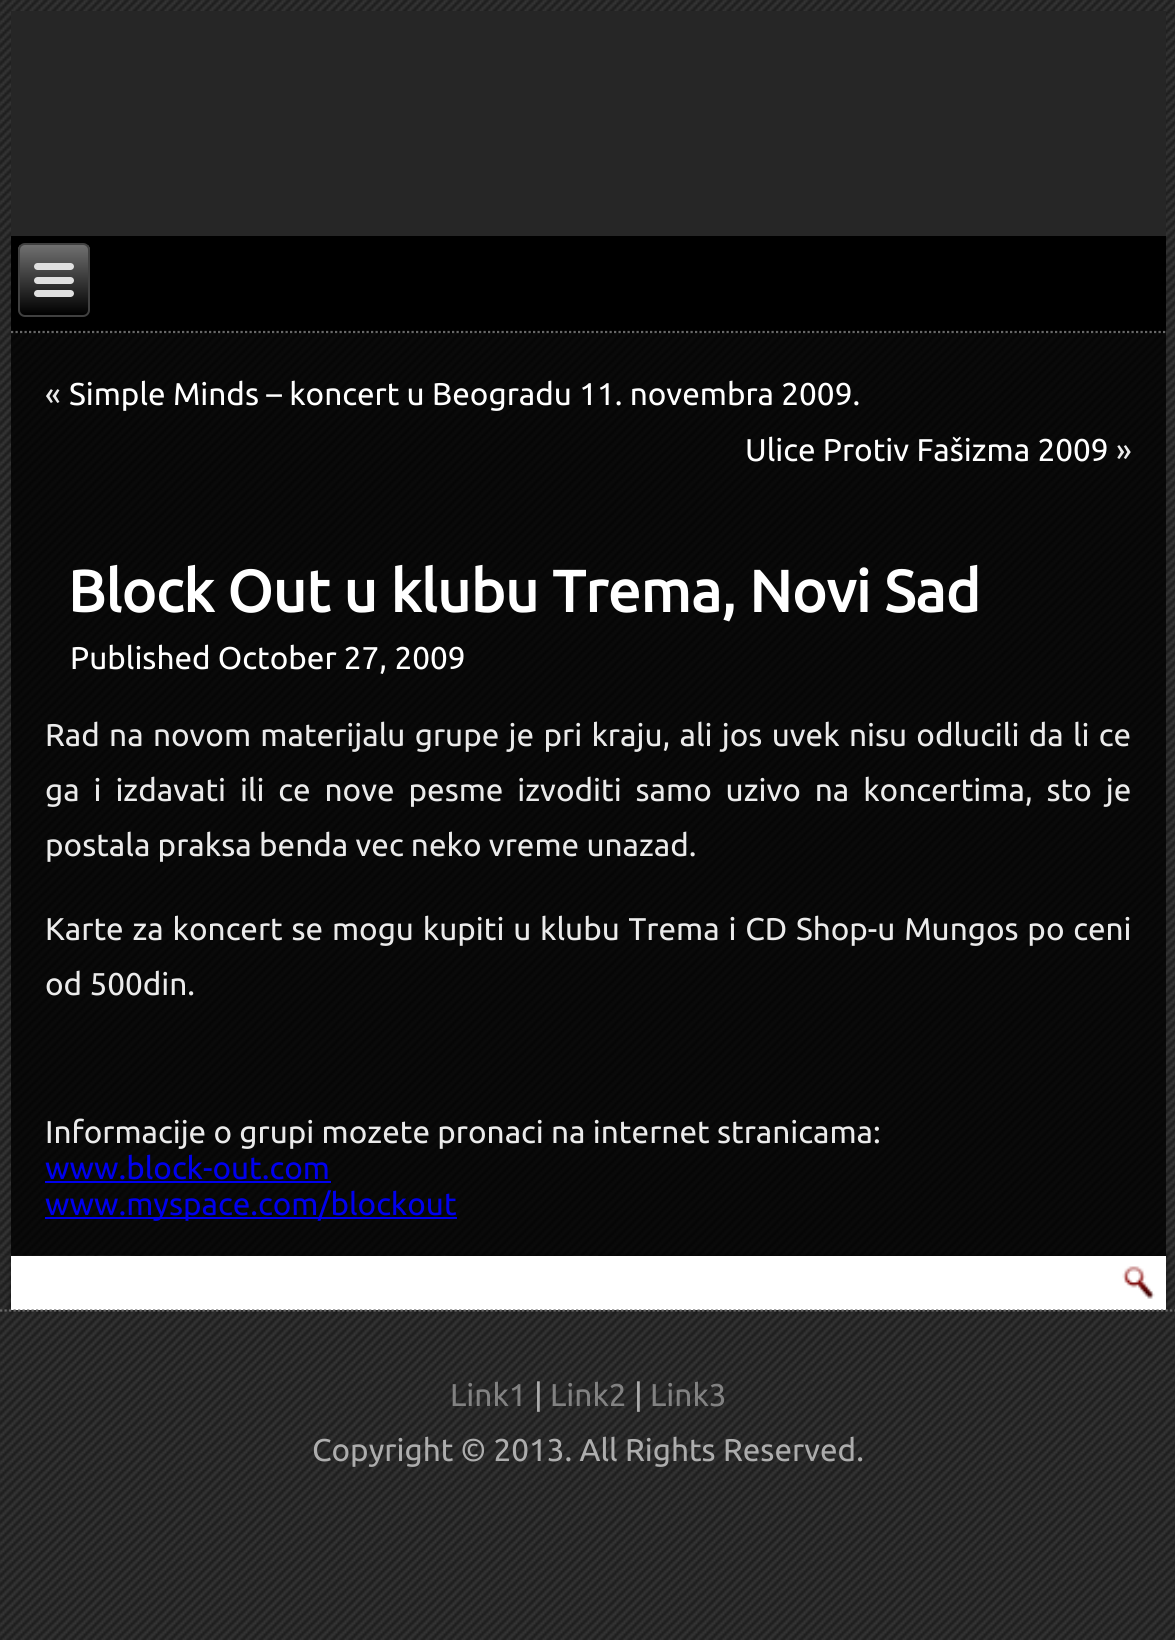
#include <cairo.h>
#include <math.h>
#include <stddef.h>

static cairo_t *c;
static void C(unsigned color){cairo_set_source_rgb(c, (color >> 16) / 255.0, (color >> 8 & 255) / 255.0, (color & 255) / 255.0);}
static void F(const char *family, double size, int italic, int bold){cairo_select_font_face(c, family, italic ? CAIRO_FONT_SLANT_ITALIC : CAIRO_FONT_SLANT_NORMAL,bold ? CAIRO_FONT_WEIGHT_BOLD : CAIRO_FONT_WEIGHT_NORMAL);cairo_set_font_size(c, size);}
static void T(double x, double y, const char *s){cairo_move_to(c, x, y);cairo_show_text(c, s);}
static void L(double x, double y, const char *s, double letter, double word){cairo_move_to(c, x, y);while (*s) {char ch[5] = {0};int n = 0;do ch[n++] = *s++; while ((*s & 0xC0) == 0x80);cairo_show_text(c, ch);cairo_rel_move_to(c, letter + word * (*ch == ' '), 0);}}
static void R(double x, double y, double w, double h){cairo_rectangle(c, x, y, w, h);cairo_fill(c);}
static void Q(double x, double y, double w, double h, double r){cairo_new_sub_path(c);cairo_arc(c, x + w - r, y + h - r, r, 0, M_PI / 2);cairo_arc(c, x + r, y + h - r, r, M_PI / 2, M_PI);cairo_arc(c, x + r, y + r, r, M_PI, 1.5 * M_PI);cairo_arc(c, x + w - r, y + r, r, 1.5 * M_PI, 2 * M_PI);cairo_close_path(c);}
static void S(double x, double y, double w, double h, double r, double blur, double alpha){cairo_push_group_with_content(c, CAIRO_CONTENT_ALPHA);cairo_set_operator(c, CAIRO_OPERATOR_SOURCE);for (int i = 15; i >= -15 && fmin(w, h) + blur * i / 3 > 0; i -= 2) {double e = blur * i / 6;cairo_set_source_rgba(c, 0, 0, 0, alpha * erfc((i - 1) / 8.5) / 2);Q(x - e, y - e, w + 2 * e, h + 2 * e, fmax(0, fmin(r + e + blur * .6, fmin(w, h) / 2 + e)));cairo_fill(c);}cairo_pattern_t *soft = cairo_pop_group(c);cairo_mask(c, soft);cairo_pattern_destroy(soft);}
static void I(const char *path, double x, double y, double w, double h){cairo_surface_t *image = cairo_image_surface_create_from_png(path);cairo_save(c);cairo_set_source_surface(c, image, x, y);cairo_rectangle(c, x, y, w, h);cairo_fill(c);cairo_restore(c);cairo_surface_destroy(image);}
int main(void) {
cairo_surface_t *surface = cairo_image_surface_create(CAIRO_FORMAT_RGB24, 1175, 1640);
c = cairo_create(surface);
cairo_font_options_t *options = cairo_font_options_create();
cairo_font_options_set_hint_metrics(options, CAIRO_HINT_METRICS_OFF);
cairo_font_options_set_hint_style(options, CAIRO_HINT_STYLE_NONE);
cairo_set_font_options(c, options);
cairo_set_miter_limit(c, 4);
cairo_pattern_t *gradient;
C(0x262626);
cairo_paint(c);
I("1.png",0,0,1175,1640);
cairo_set_source_rgba(c,0,0,0,0.8);
R(11,333,1155,923);
C(0x262626);
R(11,11,1155,225);
C(0x000000);
R(11,236,1155,97);
cairo_new_path(c);
cairo_move_to(c,11,332);
cairo_line_to(c,1165.5,332);
C(0x696969);
cairo_set_line_width(c,2.2);
cairo_set_dash(c,(double[]){2.25,2.25},2,0);
cairo_stroke(c);
cairo_save(c);
Q(18,243,72,74,7);
cairo_clip(c);
gradient = cairo_pattern_create_linear(54,245,54,315);
cairo_pattern_add_color_stop_rgba(gradient,0,0.439,0.439,0.439,1);
cairo_pattern_add_color_stop_rgba(gradient,1,0,0,0,1);
cairo_set_source(c,gradient);
cairo_pattern_destroy(gradient);
R(18,245,72,70);
cairo_restore(c);
Q(19,244,70,72,6);
C(0x404040);
cairo_set_line_width(c,2);
cairo_set_dash(c,NULL,0,0);
cairo_stroke(c);
C(0xe0e0e0);
Q(34,263,40,7,3.5);
cairo_fill(c);
Q(34,277,40,7,3.5);
cairo_fill(c);
Q(34,290,40,7,3.5);
cairo_fill(c);
F("Ubuntu",31.5,0,0);
C(0xebebeb);
T(45,405,"«");
C(0xffffff);
T(69,405,"Simple Minds – koncert u Beogradu 11. novembra 2009.");
T(745,461,"Ulice Protiv Fašizma 2009");
C(0xebebeb);
T(1116,461,"»");
F("Ubuntu",58.5,0,1);
C(0xffffff);
T(68,612,"Block Out u klubu Trema, Novi Sad");
F("Ubuntu",31.5,0,0);
T(70,669,"Published October 27, 2009");
C(0xebebeb);
L(45,746,"Rad na novom materijalu grupe je pri kraju, ali jos uvek nisu odlucili da li ce",0,2);
L(45,801,"ga i izdavati ili ce nove pesme izvoditi samo uzivo na koncertima, sto je",0,6.6);
T(45,856,"postala praksa benda vec neko vreme unazad.");
L(45,940,"Karte za koncert se mogu kupiti u klubu Trema i CD Shop-u Mungos po ceni",0,1.5);
T(45,995,"od 500din.");
T(45,1143,"Informacije o grupi mozete pronaci na internet stranicama:");
C(0x0000ee);
T(45,1179,"www.block-out.com");
R(45,1181,286,2);
R(45,1217,412,2);
T(45,1215,"www.myspace.com/blockout");
I("2.png",11,1255,587,1);
C(0x000000);
S(9,1253,1159,59,0,2,.2);
C(0xffffff);
R(11,1256,1155,54);
I("3.png",1122,1266,33,33);
cairo_new_path(c);
cairo_move_to(c,0,1310.5);
cairo_line_to(c,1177,1310.5);
C(0x696969);
cairo_set_line_width(c,2.2);
cairo_set_dash(c,(double[]){2.25,2.25},2,0);
cairo_stroke(c);
C(0x828282);
T(450,1406,"Link1");
C(0xadadad);
T(534,1406,"|");
C(0x828282);
T(550,1406,"Link2");
C(0xadadad);
T(634,1406,"|");
C(0x828282);
T(650,1406,"Link3");
C(0xadadad);
T(312,1461,"Copyright © 2013. All Rights Reserved.");
cairo_surface_write_to_png(surface, "o.png");
cairo_font_options_destroy(options);
cairo_destroy(c);
cairo_surface_destroy(surface);
return 0;
}
